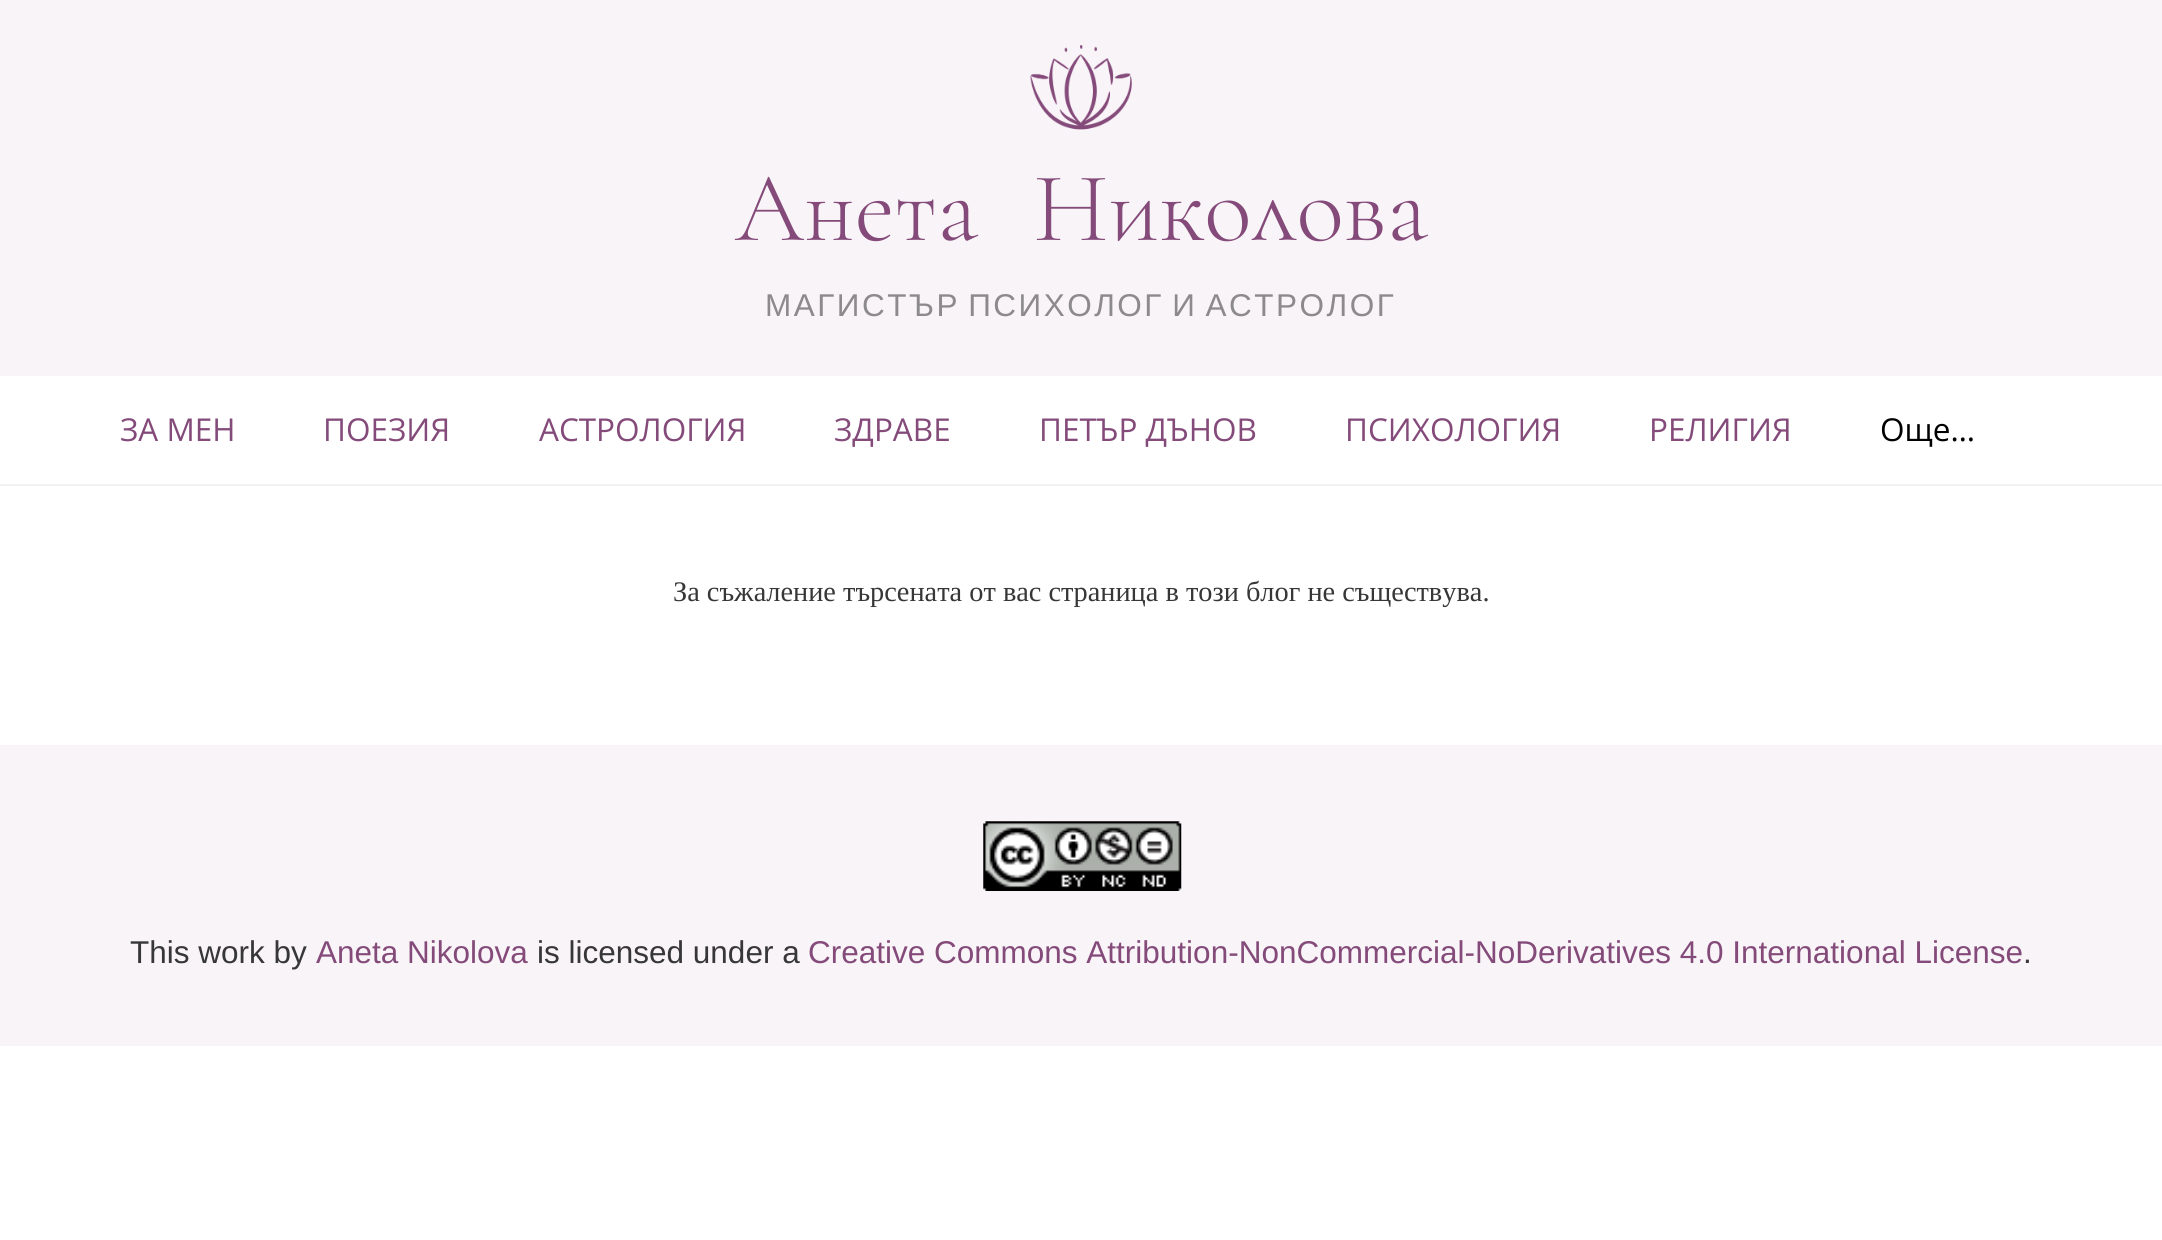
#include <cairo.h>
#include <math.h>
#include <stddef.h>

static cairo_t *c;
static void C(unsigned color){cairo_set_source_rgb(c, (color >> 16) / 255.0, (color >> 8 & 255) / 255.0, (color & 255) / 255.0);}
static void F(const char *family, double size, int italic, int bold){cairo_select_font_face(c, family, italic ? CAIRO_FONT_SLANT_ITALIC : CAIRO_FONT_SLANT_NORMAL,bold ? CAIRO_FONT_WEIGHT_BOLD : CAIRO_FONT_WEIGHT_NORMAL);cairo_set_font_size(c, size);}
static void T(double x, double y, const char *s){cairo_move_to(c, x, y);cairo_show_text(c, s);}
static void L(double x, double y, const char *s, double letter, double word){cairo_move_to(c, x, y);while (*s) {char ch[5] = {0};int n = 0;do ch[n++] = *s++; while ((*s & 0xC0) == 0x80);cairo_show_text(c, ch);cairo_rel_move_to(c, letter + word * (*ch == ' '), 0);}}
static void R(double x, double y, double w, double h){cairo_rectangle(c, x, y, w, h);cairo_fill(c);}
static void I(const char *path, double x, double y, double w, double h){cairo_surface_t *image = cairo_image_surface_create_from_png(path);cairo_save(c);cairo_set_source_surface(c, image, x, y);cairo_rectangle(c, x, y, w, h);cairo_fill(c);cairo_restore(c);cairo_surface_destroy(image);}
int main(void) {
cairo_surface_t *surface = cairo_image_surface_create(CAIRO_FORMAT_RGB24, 2162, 1240);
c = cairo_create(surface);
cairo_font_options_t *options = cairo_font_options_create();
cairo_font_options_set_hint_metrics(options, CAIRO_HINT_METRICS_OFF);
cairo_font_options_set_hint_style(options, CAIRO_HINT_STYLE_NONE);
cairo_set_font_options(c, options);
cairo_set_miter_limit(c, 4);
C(0xffffff);
cairo_paint(c);
C(0xf9f4f8);
R(0,0,2162,376);
I("1.png",1030,45,102,85);
F("Cormorant Garamond Light",99,0,0);
C(0x844b7a);
L(735,240,"Анета Николова",0,32);
F("Liberation Sans",31.5,0,0);
C(0x8c8a8c);
L(765,316,"МАГИСТЪР ПСИХОЛОГ И АСТРОЛОГ",2.5,-3);
C(0xf2f2f2);
R(0,484,2162,2);
F("Open Sans",31.5,0,0);
C(0x844b7a);
T(120,441,"ЗА МЕН");
T(323,441,"ПОЕЗИЯ");
T(539,441,"АСТРОЛОГИЯ");
T(834,441,"ЗДРАВЕ");
T(1039,441,"ПЕТЪР ДЪНОВ");
T(1345,441,"ПСИХОЛОГИЯ");
T(1649,441,"РЕЛИГИЯ");
C(0x000000);
T(1880,441,"Още…");
F("Liberation Serif",28.35,0,0);
C(0x373737);
T(673,601,"За съжаление търсената от вас страница в този блог не съществува.");
C(0xf9f4f8);
R(0,745,2162,301);
I("2.png",983,821,199,70);
F("Liberation Sans",31.5,0,0);
C(0x373737);
T(130,963,"This work by");
C(0x844b7a);
T(316,963,"Aneta Nikolova");
C(0x373737);
T(537,963,"is licensed under a");
C(0x844b7a);
T(808,963,"Creative Commons Attribution-NonCommercial-NoDerivatives 4.0 International License");
C(0x373737);
T(2023,963,".");
cairo_surface_write_to_png(surface, "o.png");
cairo_font_options_destroy(options);
cairo_destroy(c);
cairo_surface_destroy(surface);
return 0;
}
